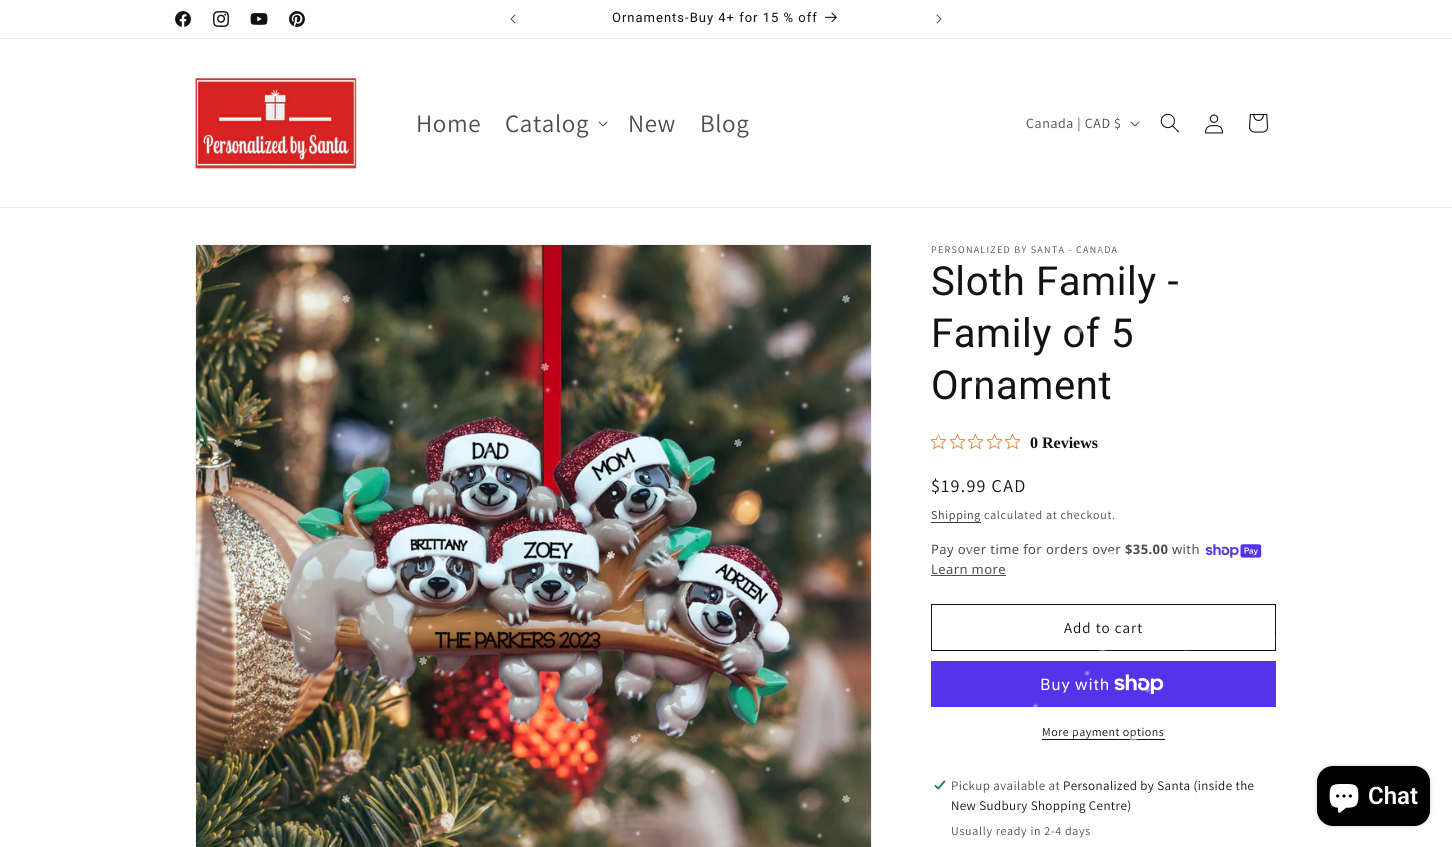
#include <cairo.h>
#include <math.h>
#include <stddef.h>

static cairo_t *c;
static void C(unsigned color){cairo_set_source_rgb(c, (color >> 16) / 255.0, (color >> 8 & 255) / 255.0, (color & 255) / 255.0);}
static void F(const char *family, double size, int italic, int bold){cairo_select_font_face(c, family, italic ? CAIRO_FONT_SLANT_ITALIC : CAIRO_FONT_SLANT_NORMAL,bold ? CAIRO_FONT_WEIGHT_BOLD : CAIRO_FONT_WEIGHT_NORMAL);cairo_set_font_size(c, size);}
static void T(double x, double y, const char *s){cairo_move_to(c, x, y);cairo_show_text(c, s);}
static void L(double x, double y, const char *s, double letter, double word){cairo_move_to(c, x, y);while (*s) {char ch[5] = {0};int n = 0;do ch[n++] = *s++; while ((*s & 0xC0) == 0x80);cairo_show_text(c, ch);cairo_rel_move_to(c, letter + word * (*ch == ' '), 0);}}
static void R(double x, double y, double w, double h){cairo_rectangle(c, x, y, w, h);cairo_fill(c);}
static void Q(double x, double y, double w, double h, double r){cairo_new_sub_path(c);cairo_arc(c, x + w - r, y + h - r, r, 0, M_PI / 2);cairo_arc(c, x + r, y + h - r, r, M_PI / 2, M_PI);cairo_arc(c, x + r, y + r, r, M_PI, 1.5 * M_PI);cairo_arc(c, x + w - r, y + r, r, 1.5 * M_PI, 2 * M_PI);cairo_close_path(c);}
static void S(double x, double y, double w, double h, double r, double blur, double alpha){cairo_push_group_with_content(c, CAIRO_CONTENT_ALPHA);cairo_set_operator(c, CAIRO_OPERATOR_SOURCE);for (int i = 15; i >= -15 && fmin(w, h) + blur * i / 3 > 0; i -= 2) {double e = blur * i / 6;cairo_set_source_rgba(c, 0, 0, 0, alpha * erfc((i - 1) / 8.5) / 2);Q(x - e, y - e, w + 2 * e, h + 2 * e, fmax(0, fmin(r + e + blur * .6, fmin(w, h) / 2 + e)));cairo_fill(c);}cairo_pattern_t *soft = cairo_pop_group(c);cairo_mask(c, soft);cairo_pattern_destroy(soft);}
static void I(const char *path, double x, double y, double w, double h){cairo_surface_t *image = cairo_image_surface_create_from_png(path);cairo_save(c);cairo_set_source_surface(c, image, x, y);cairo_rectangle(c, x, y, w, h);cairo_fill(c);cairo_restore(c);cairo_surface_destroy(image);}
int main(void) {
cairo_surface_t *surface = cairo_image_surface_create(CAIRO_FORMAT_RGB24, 1452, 847);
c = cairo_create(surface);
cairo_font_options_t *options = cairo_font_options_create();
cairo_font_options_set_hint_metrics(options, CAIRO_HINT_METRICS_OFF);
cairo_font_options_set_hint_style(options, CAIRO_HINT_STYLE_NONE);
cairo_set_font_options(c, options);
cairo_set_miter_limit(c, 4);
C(0xffffff);
cairo_paint(c);
C(0xececec);
R(0,38,1452,1);
I("1.png",175,11,16,16);
I("2.png",213,11,16,16);
I("3.png",250,13,18,12);
I("4.png",289,11,16,16);
I("5.png",510,14,6,10);
F("Roboto",13,0,0);
C(0x121212);
L(612,22,"Ornaments-Buy 4+ for 15 % off",1,0);
I("6.png",825,12,12,11);
I("7.png",936,14,6,10);
C(0xececec);
R(0,207,1452,1);
I("8.png",195,78,162,91);
F("Assistant",25,0,0);
C(0x4d4d4d);
L(416,132,"Home",.6,0);
L(505,132,"Catalog",.6,0);
I("9.png",598,121,10,6);
L(628,132,"New",.6,0);
L(700,132,"Blog",.6,0);
F("Assistant",14,0,0);
L(1026,128,"Canada | CAD $",.6,0);
I("9.png",1130,121,10,6);
I("10.png",1160,113,19,20);
I("11.png",1205,114,18,20);
I("12.png",1249,114,20,19);
cairo_rectangle(c,195.5,244.5,676,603);
C(0xf3f3f3);
cairo_set_line_width(c,1);
cairo_stroke(c);
I("14.png",196,245,675,602);
F("Assistant",10,0,0);
C(0x4d4d4d);
L(931,253,"PERSONALIZED BY SANTA - CANADA",1.3,0);
F("Roboto",40,0,0);
C(0x121212);
L(931,295,"Sloth Family -",.6,0);
L(931,347,"Family of 5",.6,0);
L(931,399,"Ornament",.6,0);
I("15.png",931,434,15,15);
I("15.png",950,434,15,15);
I("15.png",968,434,15,15);
I("15.png",987,434,15,15);
I("15.png",1005,434,15,15);
F("Liberation Serif",16,0,1);
T(1030,448,"0 Reviews");
F("Assistant",18,0,0);
L(931,492,"$19.99 CAD",1.3,0);
F("Assistant",12,0,0);
C(0x363636);
L(931,519,"Shipping",.7,0);
R(931,522,50,1);
C(0x4d4d4d);
L(984,519,"calculated at checkout.",.7,0);
F("Noto Sans",13,0,0);
L(931,554,"Pay over time for orders over",.4,0);
F("Noto Sans",13,0,1);
L(1125,554,"$35.00",.4,0);
F("Noto Sans",13,0,0);
L(1172,554,"with",.4,0);
I("16.png",1205,544,57,14);
L(931,574,"Learn more",.4,0);
R(931,575,75,1);
cairo_rectangle(c,931.5,604.5,344,46);
C(0x121212);
cairo_stroke(c);
F("Assistant",15,0,0);
L(1064,633,"Add to cart",1,0);
C(0x5433eb);
R(931,661,345,46);
F("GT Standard",16,0,0);
C(0xffffff);
L(1040,690,"Buy with",.6,0);
I("17.png",1114,674,50,20);
F("Assistant",12,0,0);
C(0x121212);
L(1042,736,"More payment options",.5,0);
R(1042,739,123,1);
I("18.png",934,780,12,10);
F("Assistant",13,0,0);
C(0x4d4d4d);
L(951,790,"Pickup available at",.4,0);
C(0x121212);
L(1063,790,"Personalized by Santa (inside the",.4,0);
L(951,810,"New Sudbury Shopping Centre)",.4,0);
F("Assistant",12,0,0);
C(0x4d4d4d);
L(951,835,"Usually ready in 2-4 days",.7,0);
I("13.png",215,245,1061,602);
C(0x000000);
S(1317,766,113,60,16,2.5,.15);
C(0x000000);
Q(1317,766,113,60,16);
cairo_fill(c);
I("19.png",1329,784,30,29);
F("Roboto SemiBold",24,0,0);
C(0xffffff);
T(1368,804,"Chat");
cairo_surface_write_to_png(surface, "o.png");
cairo_font_options_destroy(options);
cairo_destroy(c);
cairo_surface_destroy(surface);
return 0;
}
